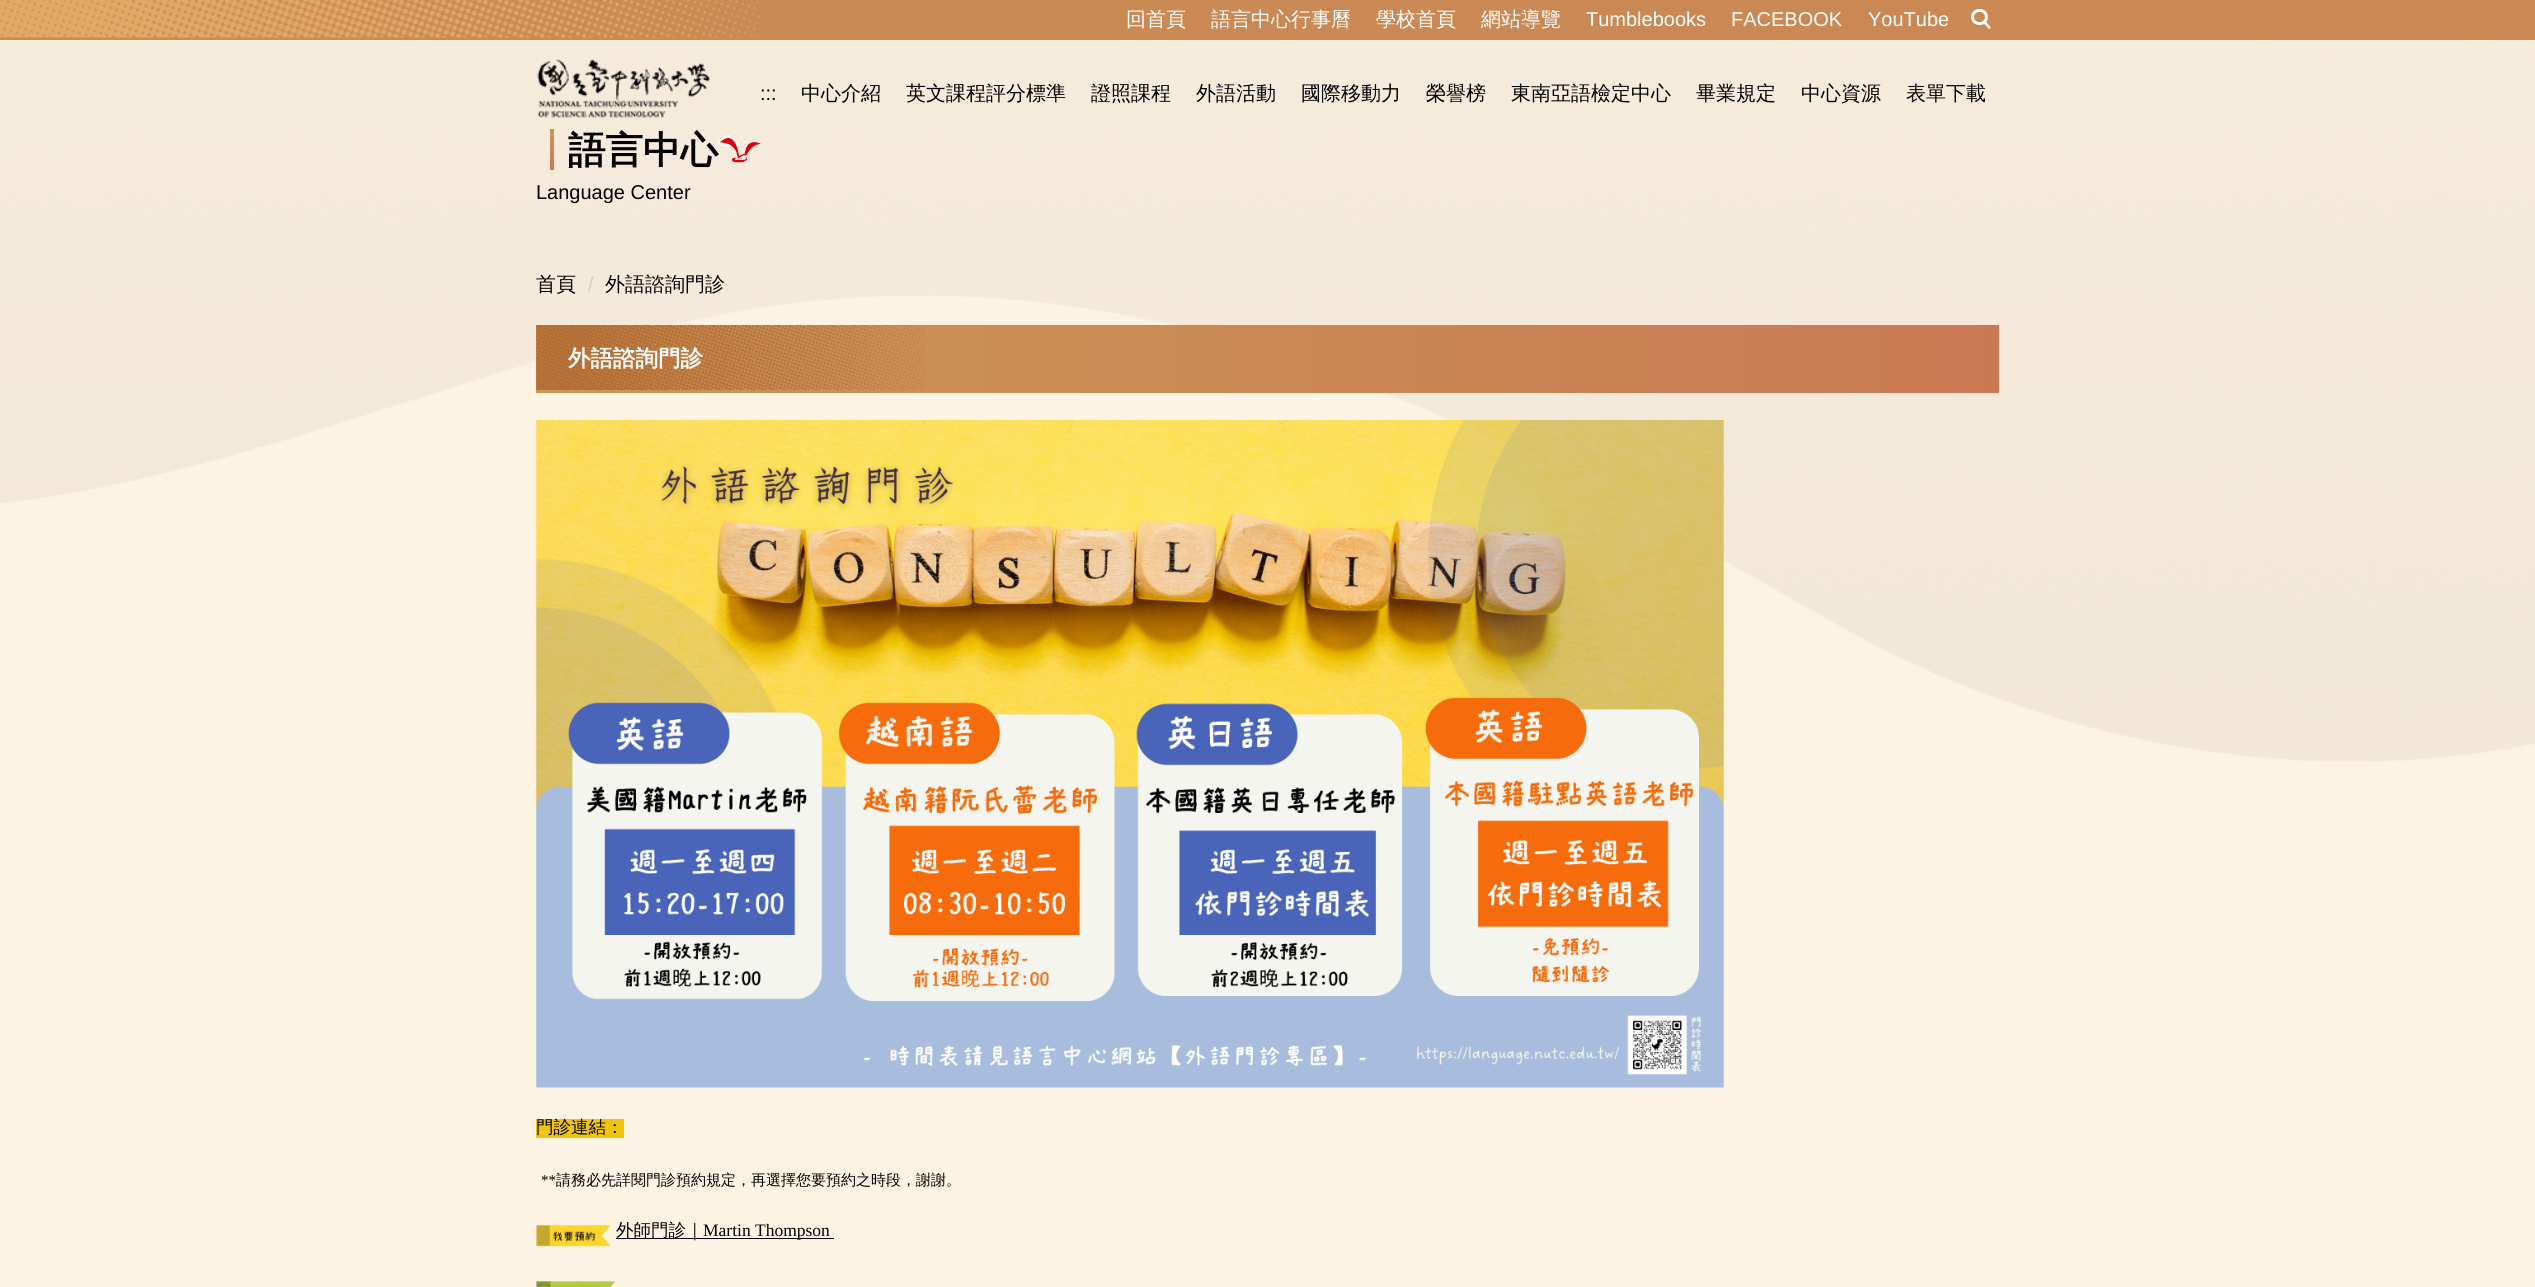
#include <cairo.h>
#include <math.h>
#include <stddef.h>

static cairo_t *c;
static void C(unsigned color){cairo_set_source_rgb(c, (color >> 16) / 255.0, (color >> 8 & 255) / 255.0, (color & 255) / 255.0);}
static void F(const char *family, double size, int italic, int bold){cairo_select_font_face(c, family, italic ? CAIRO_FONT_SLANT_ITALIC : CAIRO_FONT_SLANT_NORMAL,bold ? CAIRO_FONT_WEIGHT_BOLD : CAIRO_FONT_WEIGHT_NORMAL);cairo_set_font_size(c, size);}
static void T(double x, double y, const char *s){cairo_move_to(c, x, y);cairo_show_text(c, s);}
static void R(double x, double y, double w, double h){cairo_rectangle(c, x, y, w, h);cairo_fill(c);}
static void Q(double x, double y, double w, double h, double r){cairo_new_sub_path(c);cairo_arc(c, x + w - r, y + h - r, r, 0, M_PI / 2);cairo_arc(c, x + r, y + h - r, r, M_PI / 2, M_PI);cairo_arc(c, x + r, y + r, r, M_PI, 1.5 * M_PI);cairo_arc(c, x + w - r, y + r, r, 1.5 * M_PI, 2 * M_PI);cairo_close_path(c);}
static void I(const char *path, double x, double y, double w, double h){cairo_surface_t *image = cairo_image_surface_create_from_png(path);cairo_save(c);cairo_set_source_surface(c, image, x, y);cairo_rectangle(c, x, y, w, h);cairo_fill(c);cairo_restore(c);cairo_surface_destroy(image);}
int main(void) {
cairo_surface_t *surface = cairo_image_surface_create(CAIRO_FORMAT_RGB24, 2535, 1287);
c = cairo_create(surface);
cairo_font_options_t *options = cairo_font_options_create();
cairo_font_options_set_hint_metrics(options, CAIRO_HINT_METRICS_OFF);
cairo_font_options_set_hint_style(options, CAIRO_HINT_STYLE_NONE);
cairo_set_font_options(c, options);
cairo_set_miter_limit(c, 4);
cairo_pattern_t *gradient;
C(0xfdf3e2);
cairo_paint(c);
I("1.png",0,40,2535,722);
gradient = cairo_pattern_create_linear(-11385,20,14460,20);
cairo_pattern_add_color_stop_rgba(gradient,0,0.792,0.6,0.329,1);
cairo_pattern_add_color_stop_rgba(gradient,1,0.792,0.475,0.329,1);
cairo_set_source(c,gradient);
cairo_pattern_destroy(gradient);
R(0,0,2535,40);
I("2.png",0,0,760,38);
F("WenQuanYi Zen Hei Medium",20,0,0);
C(0xffffff);
T(1126,26,"回首頁");
T(1211,26,"語言中心行事曆");
T(1376,26,"學校首頁");
T(1481,26,"網站導覽");
F("Liberation Sans",20,0,0);
T(1586,26,"Tumblebooks");
T(1731,26,"FACEBOOK");
T(1868,26,"YouTube");
Q(1972.5,10.5,14,13,6.5);
cairo_set_line_width(c,3);
cairo_stroke(c);
cairo_new_path(c);
cairo_move_to(c,1985,21);
cairo_line_to(c,1991,27.5);
cairo_line_to(c,1989,29);
cairo_line_to(c,1983,22.5);
cairo_close_path(c);
cairo_fill(c);
C(0x000000);
T(760,100,":::");
F("WenQuanYi Zen Hei Medium",20,0,0);
T(801,100,"中心介紹");
T(906,100,"英文課程評分標準");
T(1091,100,"證照課程");
T(1196,100,"外語活動");
T(1301,100,"國際移動力");
T(1426,100,"榮譽榜");
T(1511,100,"東南亞語檢定中心");
T(1696,100,"畢業規定");
T(1801,100,"中心資源");
T(1906,100,"表單下載");
I("3.png",537,58,173,60);
gradient = cairo_pattern_create_linear(552,129,552,170);
cairo_pattern_add_color_stop_rgba(gradient,0,0.792,0.596,0.329,1);
cairo_pattern_add_color_stop_rgba(gradient,1,0.792,0.475,0.329,1);
cairo_set_source(c,gradient);
cairo_pattern_destroy(gradient);
R(550,129,4,41);
I("4.png",717,135,44,30);
F("WenQuanYi Zen Hei",37.5,0,1);
C(0x000000);
T(568,163,"語言中心");
F("Liberation Sans",20,0,0);
T(536,199,"Language Center");
F("WenQuanYi Zen Hei Medium",20,0,0);
T(536,291,"首頁");
F("Liberation Sans",20,0,0);
C(0xcccccc);
T(588,291,"/");
F("WenQuanYi Zen Hei Medium",20,0,0);
C(0x000000);
T(605,291,"外語諮詢門診");
gradient = cairo_pattern_create_linear(536,359,1999,359);
cairo_pattern_add_color_stop_rgba(gradient,0,0.792,0.596,0.329,1);
cairo_pattern_add_color_stop_rgba(gradient,1,0.792,0.475,0.329,1);
cairo_set_source(c,gradient);
cairo_pattern_destroy(gradient);
R(536,325,1463,68);
I("5.png",536,325,391,65);
F("WenQuanYi Zen Hei",22.5,0,1);
C(0xffffff);
T(568,366,"外語諮詢門診");
I("6.png",536,420,1188,668);
C(0xf1c40f);
R(536,1119,88,19);
F("WenQuanYi Zen Hei Medium",17.5,0,0);
C(0x000000);
T(536,1133,"門診連結：");
F("Liberation Serif",15,0,0);
T(541,1185,"**");
F("WenQuanYi Zen Hei Medium",15,0,0);
T(556,1185,"請務必先詳閱門診預約規定，再選擇您要預約之時段，謝謝。");
I("7.png",536,1225,76,22);
R(616,1238,218,1);
F("WenQuanYi Zen Hei Medium",17.5,0,0);
T(616,1236,"外師門診｜");
F("Liberation Serif",17.5,0,0);
T(703,1236,"Martin Thompson");
I("8.png",536,1281,79,6);
cairo_surface_write_to_png(surface, "o.png");
cairo_font_options_destroy(options);
cairo_destroy(c);
cairo_surface_destroy(surface);
return 0;
}
